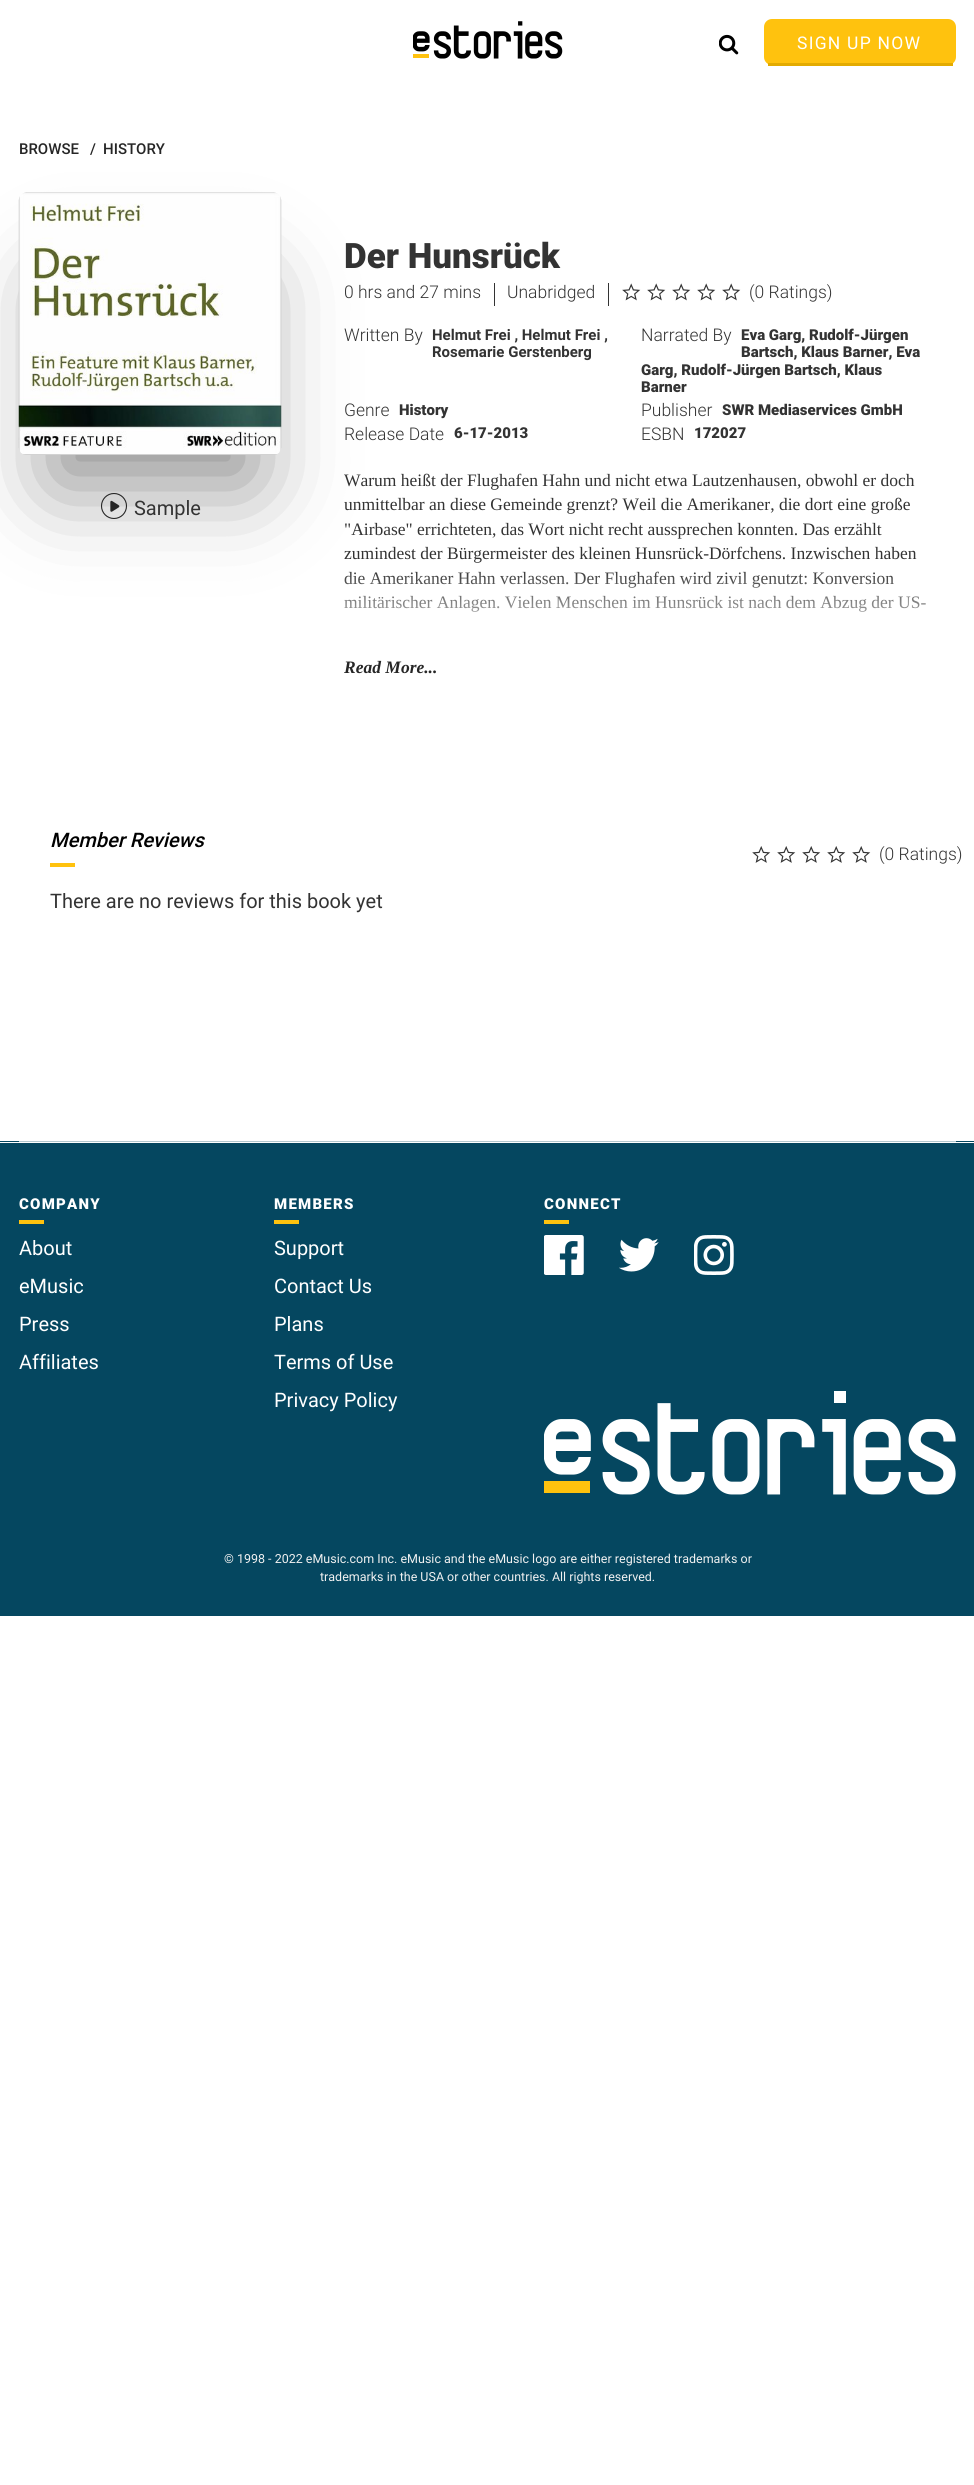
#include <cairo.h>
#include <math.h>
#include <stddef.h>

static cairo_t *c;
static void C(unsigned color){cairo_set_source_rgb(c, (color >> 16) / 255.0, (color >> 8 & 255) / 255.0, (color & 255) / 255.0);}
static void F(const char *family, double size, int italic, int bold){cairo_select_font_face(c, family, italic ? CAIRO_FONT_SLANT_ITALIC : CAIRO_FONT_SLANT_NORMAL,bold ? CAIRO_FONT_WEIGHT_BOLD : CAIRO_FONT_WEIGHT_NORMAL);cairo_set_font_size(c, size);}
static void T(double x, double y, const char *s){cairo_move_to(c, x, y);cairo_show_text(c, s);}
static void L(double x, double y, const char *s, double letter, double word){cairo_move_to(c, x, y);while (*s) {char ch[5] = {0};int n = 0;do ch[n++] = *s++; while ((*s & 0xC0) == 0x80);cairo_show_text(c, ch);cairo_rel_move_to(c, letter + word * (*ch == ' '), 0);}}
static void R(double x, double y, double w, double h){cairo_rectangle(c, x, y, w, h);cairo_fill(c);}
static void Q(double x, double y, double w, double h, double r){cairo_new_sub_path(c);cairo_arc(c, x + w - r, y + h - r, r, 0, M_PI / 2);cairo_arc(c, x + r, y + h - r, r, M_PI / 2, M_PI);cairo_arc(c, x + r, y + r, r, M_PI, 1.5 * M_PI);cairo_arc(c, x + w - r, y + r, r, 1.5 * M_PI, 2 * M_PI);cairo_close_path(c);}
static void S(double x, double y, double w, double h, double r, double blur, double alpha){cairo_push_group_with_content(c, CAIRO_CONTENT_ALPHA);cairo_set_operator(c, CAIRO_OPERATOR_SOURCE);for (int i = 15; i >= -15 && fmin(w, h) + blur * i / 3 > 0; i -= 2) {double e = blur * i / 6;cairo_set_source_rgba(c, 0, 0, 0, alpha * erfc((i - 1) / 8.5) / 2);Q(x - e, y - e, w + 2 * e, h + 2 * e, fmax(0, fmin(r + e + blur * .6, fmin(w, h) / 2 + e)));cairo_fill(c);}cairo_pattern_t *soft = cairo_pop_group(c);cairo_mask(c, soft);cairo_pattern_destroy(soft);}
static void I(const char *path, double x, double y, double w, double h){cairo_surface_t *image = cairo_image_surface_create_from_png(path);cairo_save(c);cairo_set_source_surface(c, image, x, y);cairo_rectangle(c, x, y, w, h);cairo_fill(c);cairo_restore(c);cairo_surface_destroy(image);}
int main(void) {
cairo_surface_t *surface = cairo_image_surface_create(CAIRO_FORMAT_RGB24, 974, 2485);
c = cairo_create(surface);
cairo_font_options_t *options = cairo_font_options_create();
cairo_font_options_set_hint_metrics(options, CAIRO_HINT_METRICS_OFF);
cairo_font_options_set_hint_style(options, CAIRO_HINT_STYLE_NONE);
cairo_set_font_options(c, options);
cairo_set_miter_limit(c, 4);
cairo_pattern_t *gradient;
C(0xffffff);
cairo_paint(c);
I("1.png",413,21,150,38);
I("2.png",719,34,20,21);
C(0xffc20e);
Q(764,19,192,46,8);
cairo_fill(c);
C(0xe3ab00);
R(768,63,185,3);
F("Roboto",17.5,0,0);
C(0xffffff);
L(797,49,"SIGN UP NOW",1.25,0);
F("Roboto Medium",15,0,0);
C(0x262626);
T(19,154,"BROWSE");
T(90,154,"/");
T(103,154,"HISTORY");
C(0x000000);
S(53,284,200,200,0,45,.45);
I("3.png",18,192,264,263);
I("4.png",101,493,26,26);
F("Roboto",20,0,0);
C(0x333333);
T(134,515,"Sample");
F("Roboto Black",35,0,0);
T(344,268,"Der Hunsrück");
F("Roboto Light",17.5,0,0);
T(344,298,"0 hrs and 27 mins");
R(494,283,1,23);
T(507,298,"Unabridged");
R(608,283,1,23);
I("5.png",622,283,19,18);
I("5.png",647,283,19,18);
I("5.png",672,283,19,18);
I("5.png",697,283,19,18);
I("5.png",722,283,19,18);
T(749,298,"(0 Ratings)");
T(344,341,"Written By");
F("Roboto",15,0,1);
T(432,340,"Helmut Frei , Helmut Frei ,");
T(432,357,"Rosemarie Gerstenberg");
F("Roboto Light",17.5,0,0);
T(641,341,"Narrated By");
F("Roboto Black",15,0,0);
T(741,340,"Eva Garg, Rudolf-Jürgen");
T(741,357,"Bartsch, Klaus Barner, Eva");
T(641,375,"Garg, Rudolf-Jürgen Bartsch, Klaus");
T(641,392,"Barner");
F("Roboto Light",17.5,0,0);
T(344,416,"Genre");
F("Roboto Black",15,0,0);
T(399,415,"History");
F("Roboto Light",17.5,0,0);
T(641,416,"Publisher");
F("Roboto Black",15,0,0);
T(722,415,"SWR Mediaservices GmbH");
F("Roboto Light",17.5,0,0);
T(344,440,"Release Date");
F("Roboto Black",15,0,0);
T(454,438,"6-17-2013");
F("Roboto Light",17.5,0,0);
T(641,440,"ESBN");
F("Roboto Black",15,0,0);
T(694,438,"172027");
F("Liberation Serif",17.5,0,0);
T(344,486,"Warum heißt der Flughafen Hahn und nicht etwa Lautzenhausen, obwohl er doch");
T(344,510,"unmittelbar an diese Gemeinde grenzt? Weil die Amerikaner, die dort eine große");
T(344,535,"\"Airbase\" errichteten, das Wort nicht recht aussprechen konnten. Das erzählt");
T(344,559,"zumindest der Bürgermeister des kleinen Hunsrück-Dörfchens. Inzwischen haben");
T(344,584,"die Amerikaner Hahn verlassen. Der Flughafen wird zivil genutzt: Konversion");
T(344,608,"militärischer Anlagen. Vielen Menschen im Hunsrück ist nach dem Abzug der US-");
gradient = cairo_pattern_create_linear(641,568,641,656);
cairo_pattern_add_color_stop_rgba(gradient,0,1,1,1,0);
cairo_pattern_add_color_stop_rgba(gradient,1,1,1,1,1);
cairo_set_source(c,gradient);
cairo_pattern_destroy(gradient);
R(344,572,582,40);
F("Liberation Serif",17.5,1,1);
C(0x262626);
T(344,673,"Read More...");
F("Roboto Medium",20,1,0);
C(0x000000);
T(50,847,"Member Reviews");
C(0xffc20e);
R(50,863,25,4);
F("Roboto",20,0,0);
C(0x333333);
T(50,908,"There are no reviews for this book yet");
I("6.png",752,846,19,17);
I("6.png",777,846,19,17);
I("6.png",802,846,19,17);
I("6.png",827,846,19,17);
I("6.png",852,846,19,17);
F("Roboto Light",17.5,0,0);
T(879,860,"(0 Ratings)");
C(0x054760);
R(0,1141,974,1);
C(0xb4c8cf);
R(19,1141,937,1);
C(0x054760);
R(0,1143,974,473);
F("Roboto Black",15,0,0);
C(0xffffff);
L(19,1209,"COMPANY",1.25,0);
C(0xffc20e);
R(19,1220,25,4);
F("Roboto",20,0,0);
C(0xffffff);
T(19,1255,"About");
T(19,1293,"eMusic");
T(19,1331,"Press");
T(19,1369,"Affiliates");
F("Roboto Black",15,0,0);
L(274,1209,"MEMBERS",1.25,0);
C(0xffc20e);
R(274,1220,25,4);
F("Roboto",20,0,0);
C(0xffffff);
T(274,1255,"Support");
T(274,1293,"Contact Us");
T(274,1331,"Plans");
T(274,1369,"Terms of Use");
T(274,1407,"Privacy Policy");
F("Roboto Black",15,0,0);
L(544,1209,"CONNECT",1.25,0);
C(0xffc20e);
R(544,1220,25,4);
I("7.png",544,1235,40,40);
I("8.png",619,1238,40,34);
I("9.png",694,1235,40,40);
I("10.png",544,1391,412,104);
F("Roboto",12.5,0,0);
C(0xf1f1f1);
T(224,1563,"© 1998 - 2022 eMusic.com Inc. eMusic and the eMusic logo are either registered trademarks or");
T(320,1581,"trademarks in the USA or other countries. All rights reserved.");
cairo_surface_write_to_png(surface, "o.png");
cairo_font_options_destroy(options);
cairo_destroy(c);
cairo_surface_destroy(surface);
return 0;
}
